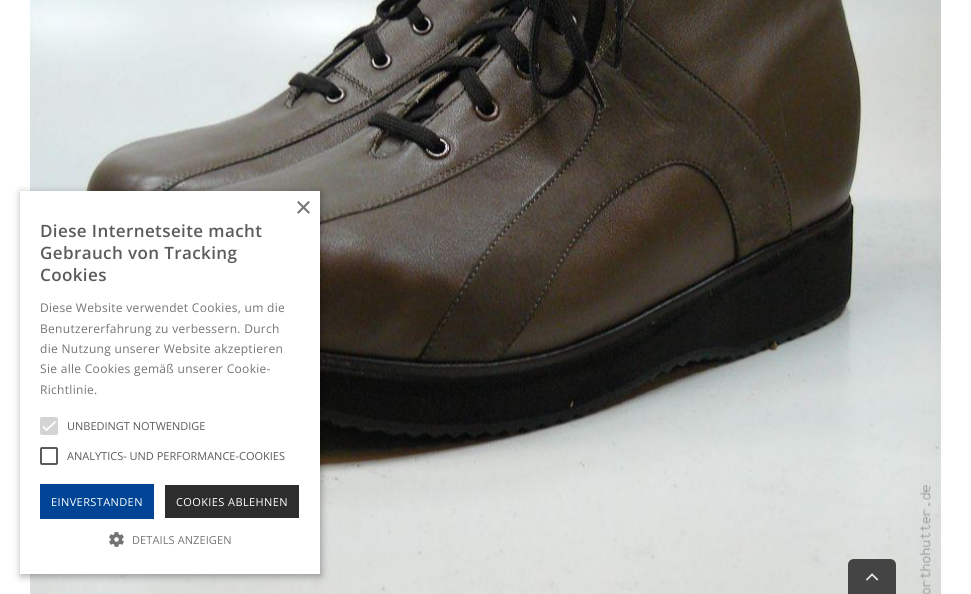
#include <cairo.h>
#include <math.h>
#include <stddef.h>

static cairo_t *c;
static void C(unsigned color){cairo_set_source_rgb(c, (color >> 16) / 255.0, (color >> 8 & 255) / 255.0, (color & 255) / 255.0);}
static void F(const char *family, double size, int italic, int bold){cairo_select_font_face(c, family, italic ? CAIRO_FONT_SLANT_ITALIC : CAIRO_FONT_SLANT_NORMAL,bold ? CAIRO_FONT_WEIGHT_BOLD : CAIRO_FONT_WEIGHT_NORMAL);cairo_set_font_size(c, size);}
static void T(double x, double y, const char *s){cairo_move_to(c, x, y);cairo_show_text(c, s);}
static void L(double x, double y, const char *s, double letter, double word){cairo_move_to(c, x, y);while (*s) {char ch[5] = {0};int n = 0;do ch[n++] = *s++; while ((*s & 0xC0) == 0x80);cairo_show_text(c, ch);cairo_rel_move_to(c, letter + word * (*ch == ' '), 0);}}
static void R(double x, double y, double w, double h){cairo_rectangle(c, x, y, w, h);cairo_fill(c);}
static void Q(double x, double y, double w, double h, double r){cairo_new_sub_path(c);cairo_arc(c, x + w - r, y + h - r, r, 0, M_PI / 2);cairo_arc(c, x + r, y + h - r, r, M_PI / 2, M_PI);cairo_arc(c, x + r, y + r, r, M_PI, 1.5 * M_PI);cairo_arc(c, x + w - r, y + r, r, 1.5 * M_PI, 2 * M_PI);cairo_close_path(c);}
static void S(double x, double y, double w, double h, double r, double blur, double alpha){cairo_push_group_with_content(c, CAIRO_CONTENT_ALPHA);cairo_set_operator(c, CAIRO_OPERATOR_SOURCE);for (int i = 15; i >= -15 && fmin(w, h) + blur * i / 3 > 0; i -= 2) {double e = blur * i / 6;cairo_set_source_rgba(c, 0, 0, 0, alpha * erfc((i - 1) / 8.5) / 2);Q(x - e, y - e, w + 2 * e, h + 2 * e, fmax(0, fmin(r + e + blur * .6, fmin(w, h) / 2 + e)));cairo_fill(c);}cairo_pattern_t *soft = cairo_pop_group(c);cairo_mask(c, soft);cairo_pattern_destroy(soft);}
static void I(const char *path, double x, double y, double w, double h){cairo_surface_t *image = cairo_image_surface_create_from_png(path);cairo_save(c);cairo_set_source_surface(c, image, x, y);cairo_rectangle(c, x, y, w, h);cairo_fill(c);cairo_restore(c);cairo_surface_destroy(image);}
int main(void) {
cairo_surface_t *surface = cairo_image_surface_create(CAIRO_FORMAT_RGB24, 971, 594);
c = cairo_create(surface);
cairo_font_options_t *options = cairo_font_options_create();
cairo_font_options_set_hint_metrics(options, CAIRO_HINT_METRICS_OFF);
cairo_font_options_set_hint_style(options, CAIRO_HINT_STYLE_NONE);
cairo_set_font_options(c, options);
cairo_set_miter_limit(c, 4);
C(0xffffff);
cairo_paint(c);
I("1.png",30,0,911,594);
C(0x000000);
S(21,193,300,383,0,4,.35);
C(0xffffff);
R(20,191,300,383);
F("Liberation Sans",29,0,0);
C(0x747474);
T(295,217,"×");
F("Open Sans SemiBold",17,0,0);
C(0x5b5b5b);
L(40,237,"Diese Internetseite macht",.4,0);
L(40,259,"Gebrauch von Tracking",.4,0);
L(40,281,"Cookies",.4,0);
F("Open Sans",12,0,0);
C(0x747474);
L(40,312,"Diese Website verwendet Cookies, um die",.3,0);
L(40,333,"Benutzererfahrung zu verbessern. Durch",.3,0);
L(40,353,"die Nutzung unserer Website akzeptieren",.3,0);
L(40,373,"Sie alle Cookies gemäß unserer Cookie-",.3,0);
L(40,394,"Richtlinie.",.3,0);
C(0xd4d4d4);
Q(40,417,18,18,2);
cairo_fill(c);
cairo_new_path(c);
cairo_move_to(c,43,426.5);
cairo_line_to(c,46.5,430);
cairo_line_to(c,55.5,421.5);
C(0xffffff);
cairo_set_line_width(c,1.8);
cairo_stroke(c);
F("Open Sans",11,0,0);
C(0x5b5b5b);
T(67,430,"UNBEDINGT NOTWENDIGE");
Q(41,448,16,16,1);
cairo_set_line_width(c,2);
cairo_stroke(c);
T(67,460,"ANALYTICS- UND PERFORMANCE-COOKIES");
C(0x004595);
R(40,484,114,35);
C(0xffffff);
L(51,506,"EINVERSTANDEN",.4,0);
C(0x2d2d2d);
R(165,485,134,33);
C(0xffffff);
L(176,506,"COOKIES ABLEHNEN",.4,0);
I("2.png",109,532,15,15);
C(0x747474);
L(132,544,"DETAILS ANZEIGEN",.1,0);
cairo_set_source_rgba(c,0.2,0.2,0.2,0.9);
cairo_new_path(c);
cairo_move_to(c,854,559);
cairo_line_to(c,890,559);
cairo_curve_to(c,893.5,559,896,561.5,896,565);
cairo_line_to(c,896,594);
cairo_line_to(c,848,594);
cairo_line_to(c,848,565);
cairo_curve_to(c,848,561.5,850.5,559,854,559);
cairo_close_path(c);
cairo_fill(c);
I("3.png",866,573,13,8);
cairo_surface_write_to_png(surface, "o.png");
cairo_font_options_destroy(options);
cairo_destroy(c);
cairo_surface_destroy(surface);
return 0;
}
